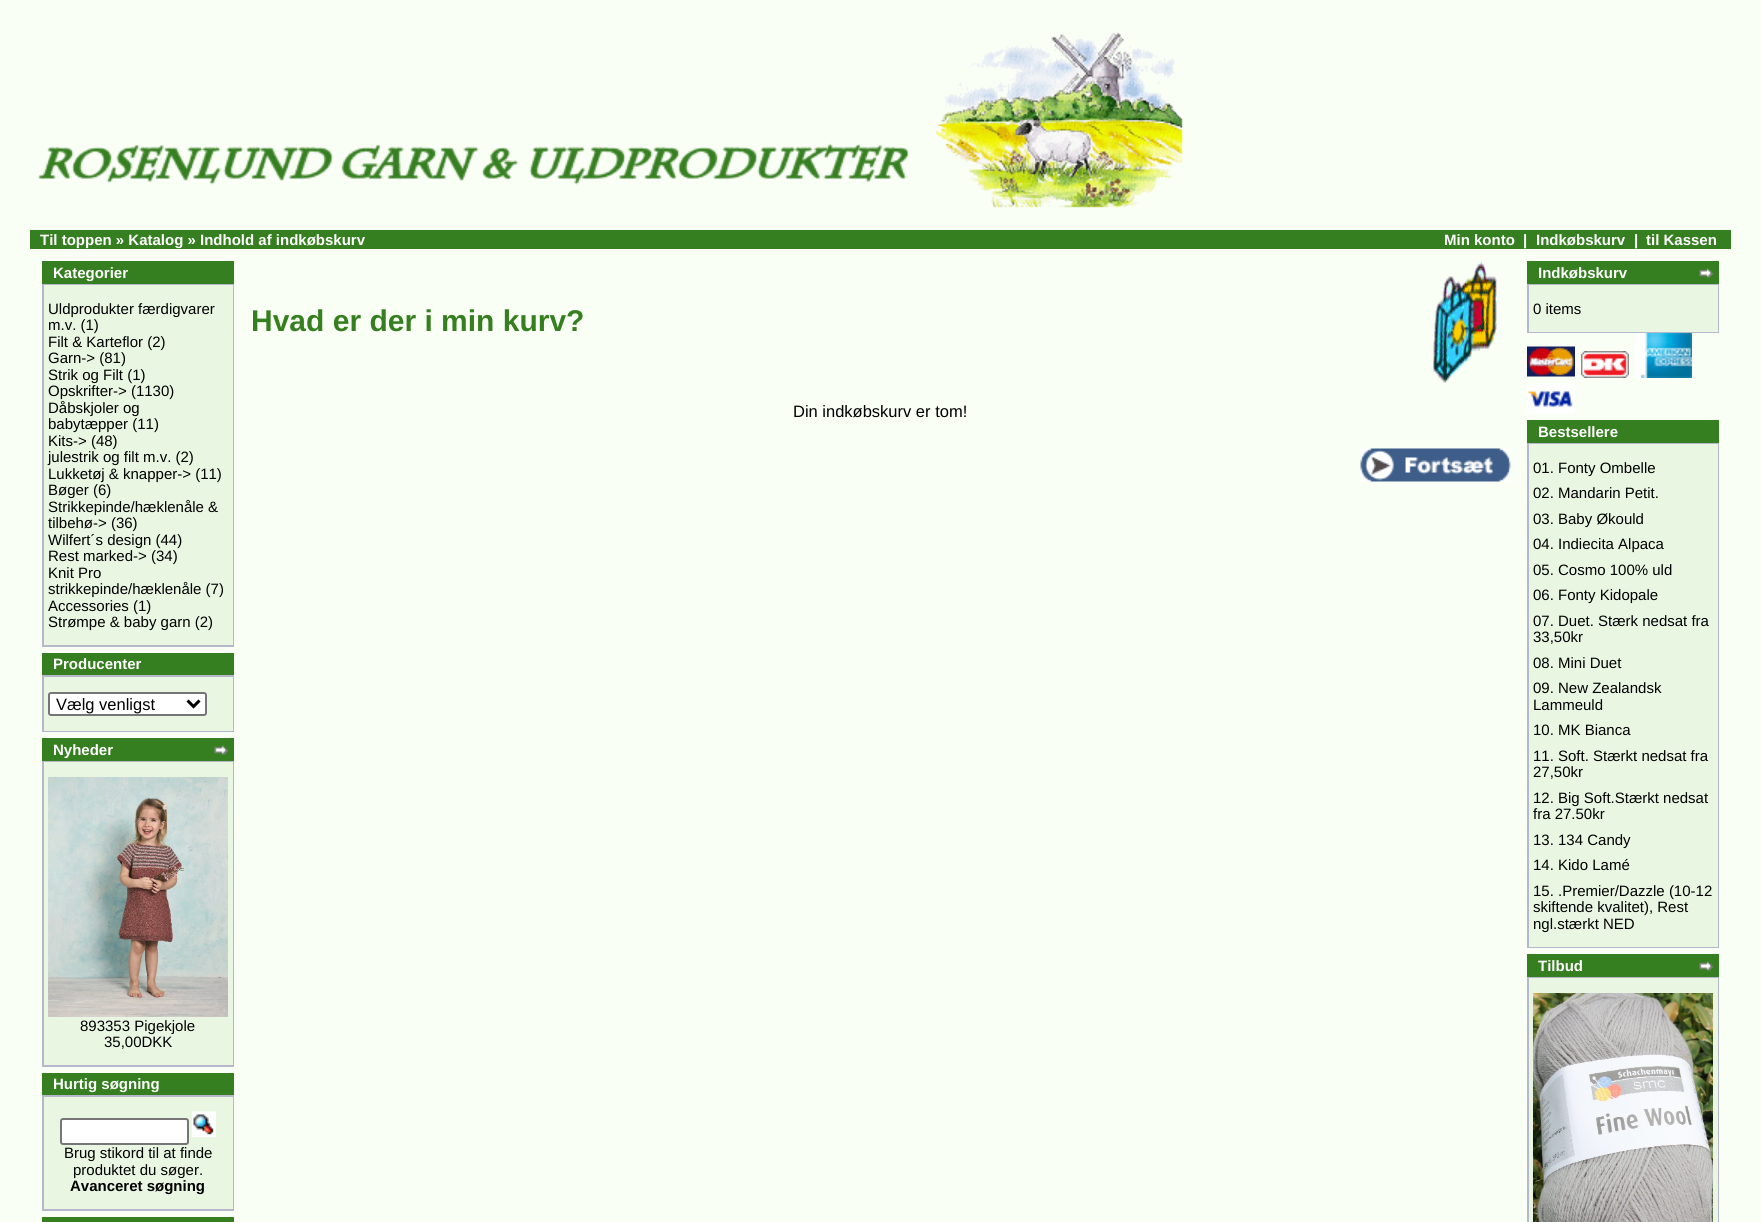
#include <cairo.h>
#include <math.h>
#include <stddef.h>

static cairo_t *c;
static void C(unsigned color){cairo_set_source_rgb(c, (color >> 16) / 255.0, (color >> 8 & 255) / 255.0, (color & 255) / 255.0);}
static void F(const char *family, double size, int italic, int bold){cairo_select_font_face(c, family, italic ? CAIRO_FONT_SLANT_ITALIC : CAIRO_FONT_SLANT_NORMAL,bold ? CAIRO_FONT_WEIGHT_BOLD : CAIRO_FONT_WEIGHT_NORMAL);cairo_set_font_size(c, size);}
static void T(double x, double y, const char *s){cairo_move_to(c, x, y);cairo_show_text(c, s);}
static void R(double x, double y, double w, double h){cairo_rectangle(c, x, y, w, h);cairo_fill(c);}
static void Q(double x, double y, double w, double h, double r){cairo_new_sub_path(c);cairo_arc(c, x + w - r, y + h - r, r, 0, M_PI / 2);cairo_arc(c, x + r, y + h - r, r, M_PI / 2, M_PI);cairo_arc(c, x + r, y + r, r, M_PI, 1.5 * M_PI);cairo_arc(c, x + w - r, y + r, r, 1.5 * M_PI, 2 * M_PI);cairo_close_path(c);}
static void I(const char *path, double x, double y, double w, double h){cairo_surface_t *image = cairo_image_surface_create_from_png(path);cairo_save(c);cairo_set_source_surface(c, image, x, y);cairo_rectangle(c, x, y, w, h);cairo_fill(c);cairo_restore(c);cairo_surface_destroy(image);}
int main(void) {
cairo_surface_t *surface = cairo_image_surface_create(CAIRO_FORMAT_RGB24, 1761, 1222);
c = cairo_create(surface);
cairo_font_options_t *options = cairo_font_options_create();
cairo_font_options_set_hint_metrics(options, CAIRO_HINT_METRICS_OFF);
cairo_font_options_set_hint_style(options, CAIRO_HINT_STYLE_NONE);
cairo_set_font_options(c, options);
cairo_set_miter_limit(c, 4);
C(0xf9fff5);
cairo_paint(c);
I("1.png",37,31,1146,177);
C(0x367f20);
R(30,230,1701,19);
F("Liberation Sans",15,0,1);
C(0xffffff);
T(40,245,"Til toppen » Katalog » Indhold af indkøbskurv");
T(1444,245,"Min konto");
T(1523,245,"|");
T(1536,245,"Indkøbskurv");
T(1634,245,"|");
T(1646,245,"til Kassen");
C(0x367f20);
R(42,261,192,23);
C(0xffffff);
T(53,278,"Kategorier");
C(0xb6b7cb);
R(42,284,192,363);
C(0xe9f6e2);
R(44,285,189,360);
F("Liberation Sans",15,0,0);
C(0x000000);
T(48,314,"Uldprodukter færdigvarer");
T(48,330,"m.v. (1)");
T(48,347,"Filt & Karteflor (2)");
T(48,363,"Garn-> (81)");
T(48,380,"Strik og Filt (1)");
T(48,396,"Opskrifter-> (1130)");
T(48,413,"Dåbskjoler og");
T(48,429,"babytæpper (11)");
T(48,446,"Kits-> (48)");
T(48,462,"julestrik og filt m.v. (2)");
T(48,479,"Lukketøj & knapper-> (11)");
T(48,495,"Bøger (6)");
T(48,512,"Strikkepinde/hæklenåle &");
T(48,528,"tilbehø-> (36)");
T(48,545,"Wilfert´s design (44)");
T(48,561,"Rest marked-> (34)");
T(48,578,"Knit Pro");
T(48,594,"strikkepinde/hæklenåle (7)");
T(48,611,"Accessories (1)");
T(48,627,"Strømpe & baby garn (2)");
C(0x367f20);
R(42,653,192,22);
F("Liberation Sans",15,0,1);
C(0xffffff);
T(53,669,"Producenter");
C(0xb6b7cb);
R(42,675,192,57);
C(0xe9f6e2);
R(44,677,189,54);
C(0xffffff);
Q(49,693,157,22,2);
cairo_fill_preserve(c);
C(0x767676);
cairo_stroke(c);
cairo_new_path(c);
cairo_move_to(c,187.5,700.5);
cairo_line_to(c,193.5,706.5);
cairo_line_to(c,199.5,700.5);
C(0x000000);
cairo_set_line_width(c,3);
cairo_stroke(c);
F("Liberation Sans",16.5,0,0);
T(56,710,"Vælg venligst");
C(0x367f20);
R(42,738,192,23);
F("Liberation Sans",15,0,1);
C(0xffffff);
T(53,755,"Nyheder");
I("2.png",214,745,15,10);
C(0xb6b7cb);
R(42,761,192,306);
C(0xe9f6e2);
R(44,762,189,303);
I("3.png",48,777,180,240);
F("Liberation Sans",15,0,0);
C(0x000000);
T(80,1031,"893353 Pigekjole");
T(104,1047,"35,00DKK");
C(0x367f20);
R(42,1073,192,22);
F("Liberation Sans",15,0,1);
C(0xffffff);
T(53,1089,"Hurtig søgning");
C(0xb6b7cb);
R(42,1095,192,116);
C(0xe9f6e2);
R(44,1097,189,112);
C(0xffffff);
Q(61,1119,127,25,2);
cairo_fill_preserve(c);
C(0x767676);
cairo_set_line_width(c,2);
cairo_stroke(c);
I("4.png",192,1111,24,26);
F("Liberation Sans",15,0,0);
C(0x000000);
T(64,1158,"Brug stikord til at finde");
T(73,1175,"produktet du søger.");
F("Liberation Sans",15,0,1);
T(70,1191,"Avanceret søgning");
C(0x367f20);
R(42,1217,192,5);
F("Liberation Sans",30,0,1);
T(251,331,"Hvad er der i min kurv?");
I("5.png",1433,261,64,122);
F("Liberation Sans",16.5,0,0);
C(0x000000);
T(793,417,"Din indkøbskurv er tom!");
I("6.png",1360,448,151,34);
C(0x367f20);
R(1527,261,192,23);
F("Liberation Sans",15,0,1);
C(0xffffff);
T(1538,278,"Indkøbskurv");
I("2.png",1699,268,15,10);
C(0xb6b7cb);
R(1527,284,192,49);
C(0xe9f6e2);
R(1529,285,189,47);
F("Liberation Sans",15,0,0);
C(0x000000);
T(1533,314,"0 items");
I("7.png",1527,346,48,31);
I("8.png",1581,351,48,27);
I("9.png",1635,333,57,45);
I("10.png",1527,384,48,30);
C(0x367f20);
R(1527,420,192,23);
F("Liberation Sans",15,0,1);
C(0xffffff);
T(1538,437,"Bestsellere");
C(0xb6b7cb);
R(1527,443,192,505);
C(0xe9f6e2);
R(1529,444,189,503);
F("Liberation Sans",15,0,0);
C(0x000000);
T(1533,473,"01. Fonty Ombelle");
T(1533,498,"02. Mandarin Petit.");
T(1533,524,"03. Baby Økould");
T(1533,549,"04. Indiecita Alpaca");
T(1533,575,"05. Cosmo 100% uld");
T(1533,600,"06. Fonty Kidopale");
T(1533,626,"07. Duet. Stærk nedsat fra");
T(1533,642,"33,50kr");
T(1533,668,"08. Mini Duet");
T(1533,693,"09. New Zealandsk");
T(1533,710,"Lammeuld");
T(1533,735,"10. MK Bianca");
T(1533,761,"11. Soft. Stærkt nedsat fra");
T(1533,777,"27,50kr");
T(1533,803,"12. Big Soft.Stærkt nedsat");
T(1533,819,"fra 27.50kr");
T(1533,845,"13. 134 Candy");
T(1533,870,"14. Kido Lamé");
T(1533,896,"15. .Premier/Dazzle (10-12");
T(1533,912,"skiftende kvalitet), Rest");
T(1533,929,"ngl.stærkt NED");
C(0x367f20);
R(1527,954,192,23);
F("Liberation Sans",15,0,1);
C(0xffffff);
T(1538,971,"Tilbud");
I("2.png",1699,961,15,10);
C(0xb6b7cb);
R(1527,977,192,245);
C(0xe9f6e2);
R(1529,978,189,244);
I("11.png",1533,993,180,229);
cairo_surface_write_to_png(surface, "o.png");
cairo_font_options_destroy(options);
cairo_destroy(c);
cairo_surface_destroy(surface);
return 0;
}
